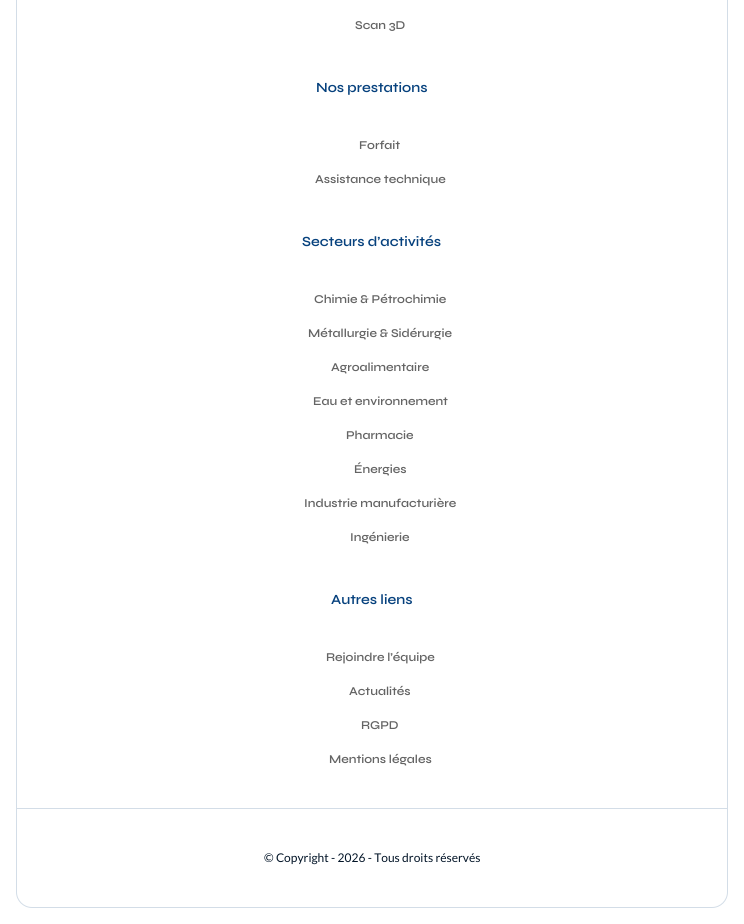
#include <cairo.h>
#include <math.h>
#include <stddef.h>

static cairo_t *c;
static void C(unsigned color){cairo_set_source_rgb(c, (color >> 16) / 255.0, (color >> 8 & 255) / 255.0, (color & 255) / 255.0);}
static void F(const char *family, double size, int italic, int bold){cairo_select_font_face(c, family, italic ? CAIRO_FONT_SLANT_ITALIC : CAIRO_FONT_SLANT_NORMAL,bold ? CAIRO_FONT_WEIGHT_BOLD : CAIRO_FONT_WEIGHT_NORMAL);cairo_set_font_size(c, size);}
static void T(double x, double y, const char *s){cairo_move_to(c, x, y);cairo_show_text(c, s);}
static void R(double x, double y, double w, double h){cairo_rectangle(c, x, y, w, h);cairo_fill(c);}
static void Q(double x, double y, double w, double h, double r){cairo_new_sub_path(c);cairo_arc(c, x + w - r, y + h - r, r, 0, M_PI / 2);cairo_arc(c, x + r, y + h - r, r, M_PI / 2, M_PI);cairo_arc(c, x + r, y + r, r, M_PI, 1.5 * M_PI);cairo_arc(c, x + w - r, y + r, r, 1.5 * M_PI, 2 * M_PI);cairo_close_path(c);}
int main(void) {
cairo_surface_t *surface = cairo_image_surface_create(CAIRO_FORMAT_RGB24, 744, 924);
c = cairo_create(surface);
cairo_font_options_t *options = cairo_font_options_create();
cairo_font_options_set_hint_metrics(options, CAIRO_HINT_METRICS_OFF);
cairo_font_options_set_hint_style(options, CAIRO_HINT_STYLE_NONE);
cairo_set_font_options(c, options);
cairo_set_miter_limit(c, 4);
C(0xffffff);
cairo_paint(c);
Q(16.5,-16.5,711,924,15.5);
C(0xd3dde7);
cairo_set_line_width(c,1);
cairo_stroke(c);
R(17,808,710,1);
F("Syne SemiBold",12,0,0);
C(0x646464);
T(355,29,"Scan 3D");
F("Syne SemiBold",14,0,0);
C(0x06417d);
T(316,92,"Nos prestations");
F("Syne SemiBold",12,0,0);
C(0x646464);
T(359,149,"Forfait");
T(315,183,"Assistance technique");
F("Syne SemiBold",14,0,0);
C(0x06417d);
T(302,246,"Secteurs d’activités");
F("Syne SemiBold",12,0,0);
C(0x646464);
T(314,303,"Chimie & Pétrochimie");
T(308,337,"Métallurgie & Sidérurgie");
T(331,371,"Agroalimentaire");
T(313,405,"Eau et environnement");
T(346,439,"Pharmacie");
T(354,473,"Énergies");
T(304,507,"Industrie manufacturière");
T(350,541,"Ingénierie");
F("Syne SemiBold",14,0,0);
C(0x06417d);
T(331,604,"Autres liens");
F("Syne SemiBold",12,0,0);
C(0x646464);
T(326,661,"Rejoindre l’équipe");
T(349,695,"Actualités");
T(361,729,"RGPD");
T(329,763,"Mentions légales");
F("Lato",12,0,0);
C(0x021427);
T(264,862,"© Copyright - 2026 - Tous droits réservés");
cairo_surface_write_to_png(surface, "o.png");
cairo_font_options_destroy(options);
cairo_destroy(c);
cairo_surface_destroy(surface);
return 0;
}
